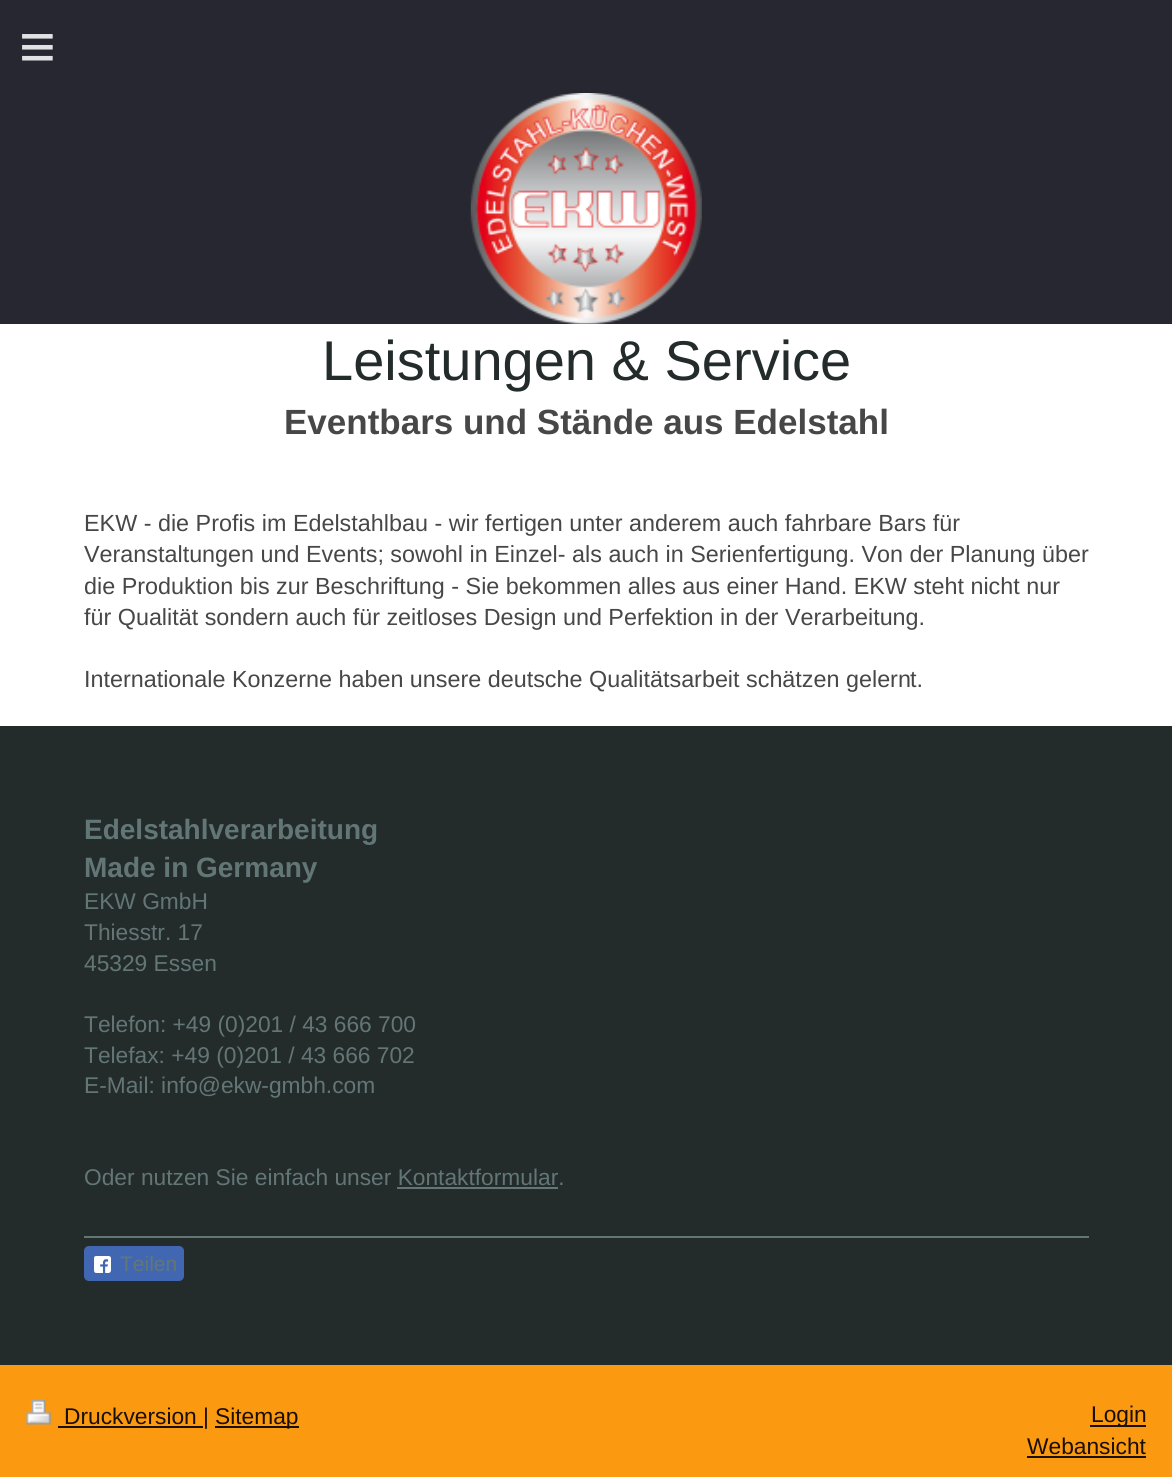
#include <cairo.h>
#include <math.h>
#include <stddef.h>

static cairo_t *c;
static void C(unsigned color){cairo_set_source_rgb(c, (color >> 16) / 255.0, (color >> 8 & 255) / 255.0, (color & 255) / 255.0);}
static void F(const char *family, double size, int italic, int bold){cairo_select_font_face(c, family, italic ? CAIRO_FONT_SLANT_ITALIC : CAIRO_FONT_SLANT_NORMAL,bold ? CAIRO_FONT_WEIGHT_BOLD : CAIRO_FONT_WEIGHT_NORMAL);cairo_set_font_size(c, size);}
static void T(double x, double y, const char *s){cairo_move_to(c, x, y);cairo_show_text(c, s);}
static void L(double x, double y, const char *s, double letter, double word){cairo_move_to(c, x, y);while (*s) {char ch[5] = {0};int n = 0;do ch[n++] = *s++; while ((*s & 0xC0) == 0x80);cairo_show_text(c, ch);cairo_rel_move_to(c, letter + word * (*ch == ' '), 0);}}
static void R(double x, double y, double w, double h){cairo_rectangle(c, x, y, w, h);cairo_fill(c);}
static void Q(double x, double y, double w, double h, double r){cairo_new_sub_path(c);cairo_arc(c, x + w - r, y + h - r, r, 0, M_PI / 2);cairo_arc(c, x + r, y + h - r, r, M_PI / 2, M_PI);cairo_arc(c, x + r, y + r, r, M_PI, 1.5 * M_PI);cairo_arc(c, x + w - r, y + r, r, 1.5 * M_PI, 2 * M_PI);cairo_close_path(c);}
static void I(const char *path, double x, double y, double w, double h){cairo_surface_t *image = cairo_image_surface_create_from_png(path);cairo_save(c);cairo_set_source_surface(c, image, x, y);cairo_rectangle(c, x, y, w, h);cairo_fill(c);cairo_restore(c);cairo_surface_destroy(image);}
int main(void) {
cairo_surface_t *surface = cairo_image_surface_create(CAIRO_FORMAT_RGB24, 1172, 1477);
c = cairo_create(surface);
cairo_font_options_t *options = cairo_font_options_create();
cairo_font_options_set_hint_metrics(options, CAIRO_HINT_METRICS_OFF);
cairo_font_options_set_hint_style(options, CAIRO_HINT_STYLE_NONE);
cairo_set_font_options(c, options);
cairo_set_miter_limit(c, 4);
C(0xffffff);
cairo_paint(c);
C(0x262730);
R(0,0,1172,324);
F("Liberation Sans",63,0,0);
C(0xe1e2e4);
L(19,68,"≡",18,0);
I("1.png",470,93,232,231);
F("Liberation Sans",56,0,0);
C(0x242b2b);
T(322,380,"Leistungen & Service");
F("Liberation Sans",35,0,1);
C(0x474747);
T(284,434,"Eventbars und Stände aus Edelstahl");
F("Liberation Sans",23.35,0,0);
T(84,531,"EKW - die Profis im Edelstahlbau - wir fertigen unter anderem auch fahrbare Bars für");
T(84,562,"Veranstaltungen und Events; sowohl in Einzel- als auch in Serienfertigung. Von der Planung über");
T(84,594,"die Produktion bis zur Beschriftung - Sie bekommen alles aus einer Hand. EKW steht nicht nur");
T(84,625,"für Qualität sondern auch für zeitloses Design und Perfektion in der Verarbeitung.");
T(84,687,"Internationale Konzerne haben unsere deutsche Qualitätsarbeit schätzen gelern");
T(910,687,"t.");
C(0x242b2b);
R(0,726,1172,639);
F("Liberation Sans",28,0,1);
C(0x637676);
T(84,839,"Edelstahlverarbeitung");
T(84,877,"Made in Germany");
F("Liberation Sans",22.75,0,0);
T(84,909,"EKW GmbH");
T(84,940,"Thiesstr. 17");
T(84,971,"45329 Essen");
T(84,1032,"Telefon: +49 (0)201 / 43 666 700");
T(84,1063,"Telefax: +49 (0)201 / 43 666 702");
T(84,1093,"E-Mail: info@ekw-gmbh.com");
T(84,1185,"Oder nutzen Sie einfach unser Kontaktformular.");
R(397,1187,161,2);
R(84,1236,1005,2);
C(0x4267b2);
Q(84,1246,100,35,5);
cairo_fill(c);
I("2.png",94,1256,17,17);
F("Liberation Sans",21,0,0);
C(0x637676);
T(120,1271,"Teilen");
C(0xfb9910);
R(0,1365,1172,112);
I("3.png",26,1400,26,25);
C(0x190f02);
R(58,1426,145,2);
F("Liberation Sans",22.75,0,0);
T(64,1424,"Druckversion |");
R(215,1426,84,2);
T(215,1424,"Sitemap");
R(1090,1425,56,2);
T(1091,1422,"Login");
T(1027,1454,"Webansicht");
R(1027,1456,119,2);
cairo_surface_write_to_png(surface, "o.png");
cairo_font_options_destroy(options);
cairo_destroy(c);
cairo_surface_destroy(surface);
return 0;
}
